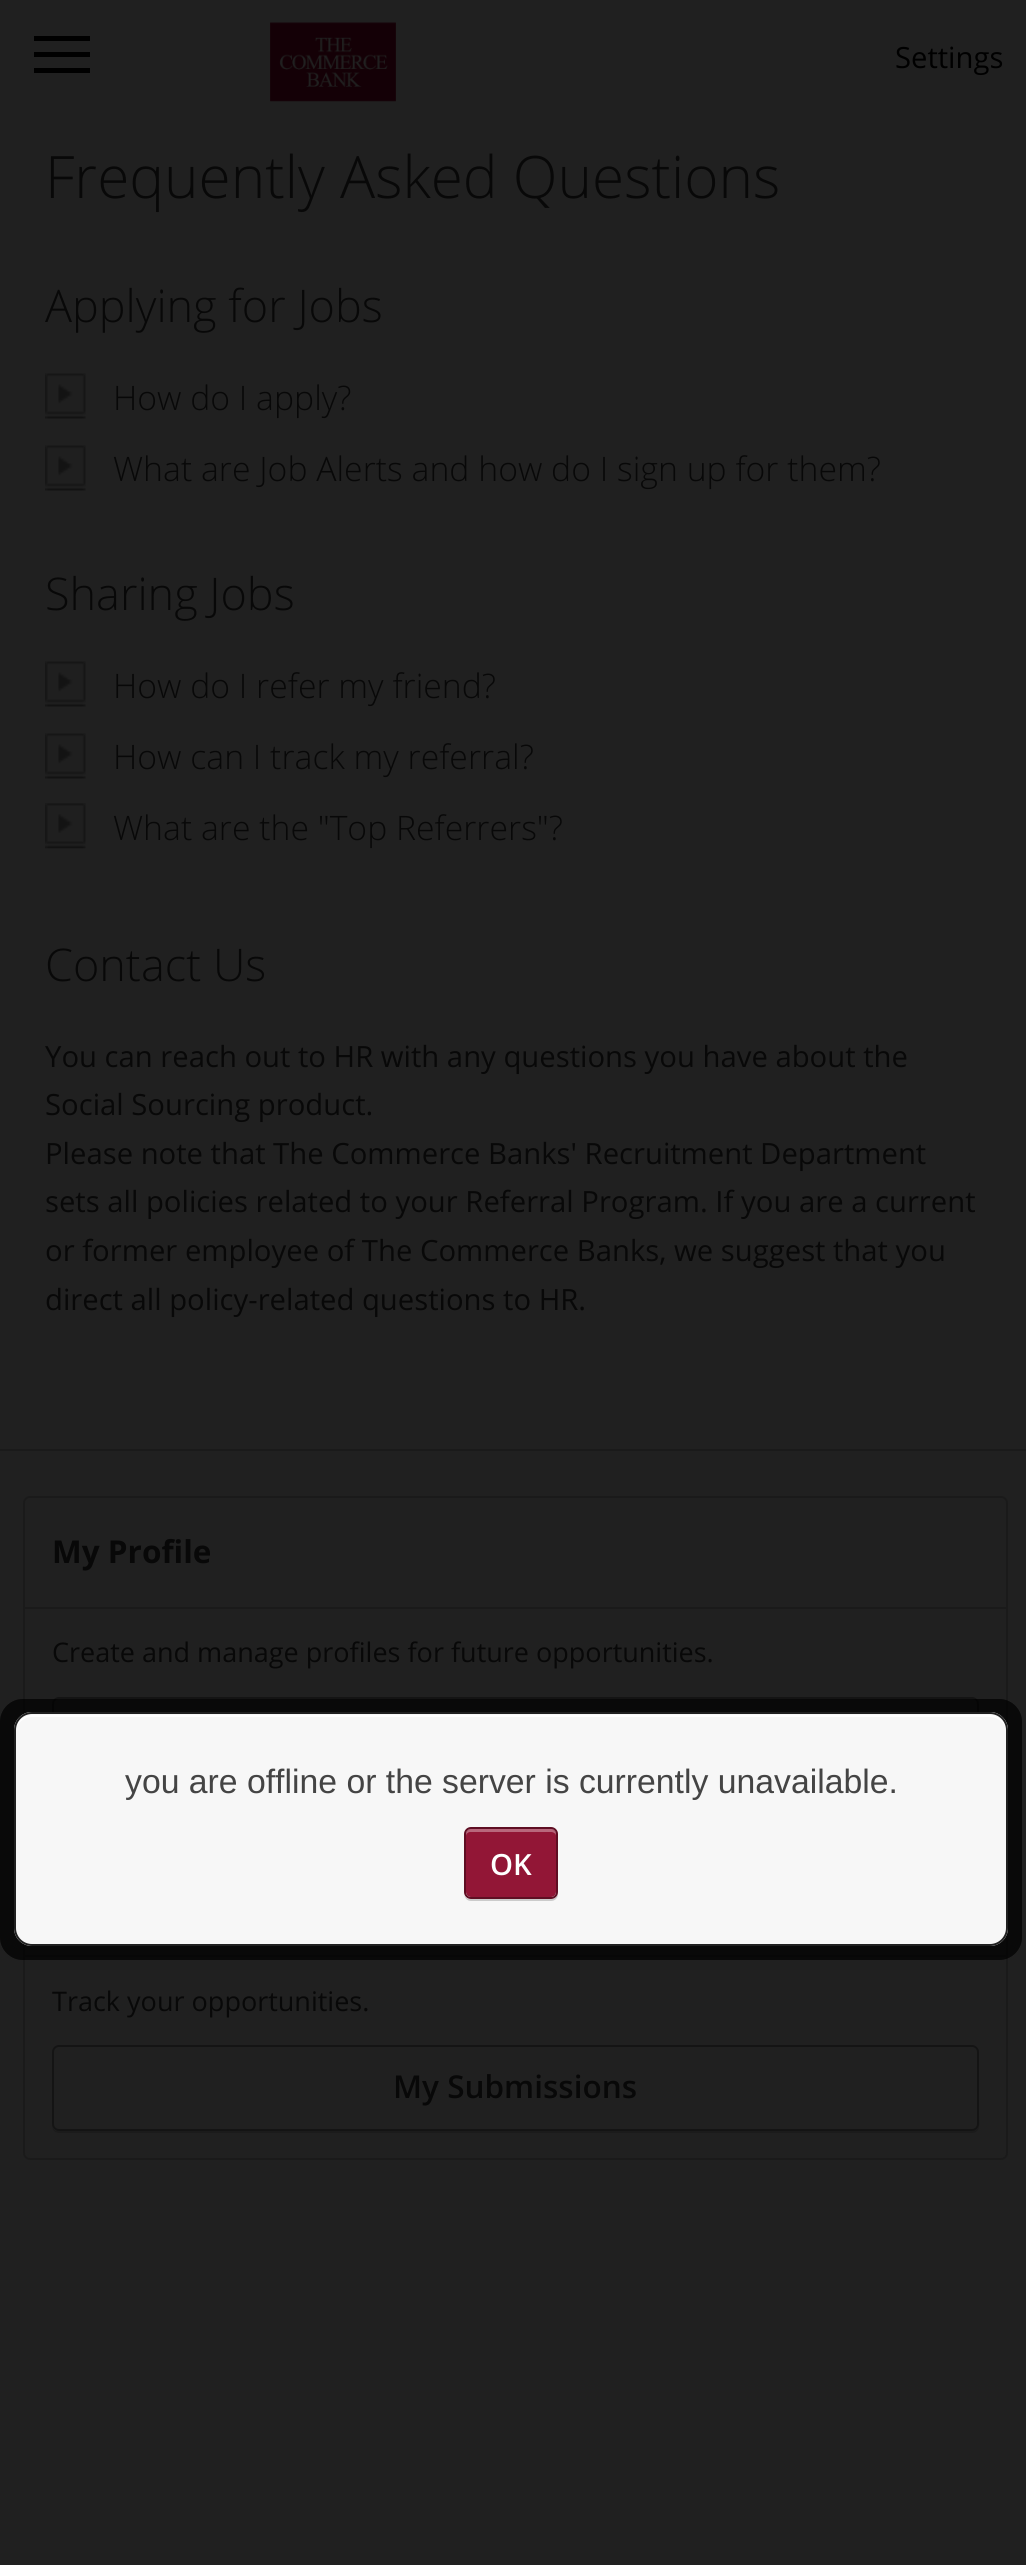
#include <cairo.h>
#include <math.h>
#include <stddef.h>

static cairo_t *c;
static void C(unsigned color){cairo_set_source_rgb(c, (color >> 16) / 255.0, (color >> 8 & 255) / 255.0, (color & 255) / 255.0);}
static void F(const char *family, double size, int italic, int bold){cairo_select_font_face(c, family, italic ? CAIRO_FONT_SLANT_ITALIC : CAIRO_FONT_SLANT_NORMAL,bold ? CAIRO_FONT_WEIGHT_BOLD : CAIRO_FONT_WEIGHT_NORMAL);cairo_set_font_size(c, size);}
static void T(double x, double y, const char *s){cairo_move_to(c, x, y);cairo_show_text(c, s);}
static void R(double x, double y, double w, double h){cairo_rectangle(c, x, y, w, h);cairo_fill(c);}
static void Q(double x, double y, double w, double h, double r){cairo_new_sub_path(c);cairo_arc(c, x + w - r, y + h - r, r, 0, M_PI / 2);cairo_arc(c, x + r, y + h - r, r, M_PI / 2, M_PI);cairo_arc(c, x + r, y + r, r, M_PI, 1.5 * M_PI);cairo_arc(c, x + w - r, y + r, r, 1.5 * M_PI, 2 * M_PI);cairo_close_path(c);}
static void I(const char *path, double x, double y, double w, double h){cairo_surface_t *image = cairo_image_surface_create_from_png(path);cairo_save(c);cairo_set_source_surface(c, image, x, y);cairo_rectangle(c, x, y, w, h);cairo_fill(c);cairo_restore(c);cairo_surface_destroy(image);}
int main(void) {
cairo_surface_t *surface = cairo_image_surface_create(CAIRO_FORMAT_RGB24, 1026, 2565);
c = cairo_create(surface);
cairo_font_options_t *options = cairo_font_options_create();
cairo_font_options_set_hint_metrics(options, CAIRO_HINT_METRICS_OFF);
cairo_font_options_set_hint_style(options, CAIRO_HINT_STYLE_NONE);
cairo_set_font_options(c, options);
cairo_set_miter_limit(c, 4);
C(0x202020);
cairo_paint(c);
C(0x000000);
R(34,52,56,5);
R(34,36,56,5);
R(34,68,56,5);
I("1.png",270,22,126,80);
F("Open Sans",29.25,0,0);
T(895,68,"Settings");
C(0x1a1a1a);
R(0,1449,1026,2);
F("Open Sans Light",58.5,0,0);
C(0x080808);
T(45,198,"Frequently Asked Questions");
F("Open Sans Light",45,0,0);
T(45,322,"Applying for Jobs");
I("2.png",45,373,41,46);
F("Open Sans Light",33.75,0,0);
T(113,410,"How do I apply?");
I("2.png",45,445,41,46);
T(113,481,"What are Job Alerts and how do I sign up for them?");
F("Open Sans Light",45,0,0);
T(45,610,"Sharing Jobs");
I("2.png",45,661,41,46);
F("Open Sans Light",33.75,0,0);
T(113,698,"How do I refer my friend?");
I("2.png",45,733,41,46);
T(113,769,"How can I track my referral?");
I("3.png",45,803,41,46);
T(113,840,"What are the \"Top Referrers\"?");
F("Open Sans Light",45,0,0);
T(45,981,"Contact Us");
F("Open Sans",29.25,0,0);
T(45,1067,"You can reach out to HR with any questions you have about the");
T(45,1115,"Social Sourcing product.");
T(45,1164,"Please note that The Commerce Banks' Recruitment Department");
T(45,1212,"sets all policies related to your Referral Program. If you are a current");
T(45,1261,"or former employee of The Commerce Banks, we suggest that you");
T(45,1310,"direct all policy-related questions to HR.");
Q(24,1497,983,313,6);
C(0x1a1a1a);
cairo_stroke(c);
R(25,1607,981,2);
F("Open Sans",31.5,0,1);
C(0x080808);
T(52,1563,"My Profile");
F("Open Sans",27,0,0);
T(52,1662,"Create and manage profiles for future opportunities.");
Q(53,1698,925,83,6);
C(0x141414);
cairo_stroke(c);
Q(24,1846,983,313,6);
C(0x1a1a1a);
cairo_stroke(c);
R(25,1955,981,2);
C(0x080808);
T(52,2011,"Track your opportunities.");
C(0x1b1b1b);
cairo_new_path(c);
cairo_move_to(c,52,2126);
cairo_curve_to(c,52,2130,55,2133,59,2133);
cairo_line_to(c,972,2133);
cairo_curve_to(c,982,2133,979,2119,979,2114);
cairo_line_to(c,979,2053);
cairo_line_to(c,979,2124);
cairo_curve_to(c,979,2128,976,2131,972,2131);
cairo_line_to(c,58,2131);
cairo_curve_to(c,55,2131,53,2129,52,2126);
cairo_close_path(c);
cairo_fill(c);
Q(53,2046,925,84,6);
C(0x141414);
cairo_stroke(c);
F("Open Sans SemiBold",31.5,0,0);
C(0x080808);
T(393,2098,"My Submissions");
cairo_set_source_rgba(c,0,0,0,0.35);
Q(0,1699,1022,261,23);
cairo_fill(c);
Q(15,1713,992,232,17);
C(0x202020);
cairo_stroke(c);
cairo_set_source_rgba(c,0,0,0,0.35);
Q(0,1699,1022,261,23);
cairo_fill(c);
Q(15,1713,992,232,17);
C(0x202020);
cairo_stroke(c);
cairo_set_source_rgba(c,0,0,0,0.35);
Q(0,1699,1022,261,23);
cairo_fill(c);
C(0xf7f7f7);
Q(14,1712,994,234,18);
cairo_fill(c);
C(0xffffff);
cairo_new_path(c);
cairo_move_to(c,32,1717);
cairo_line_to(c,990,1717);
cairo_curve_to(c,999,1717,1006,1724,1006,1732);
cairo_line_to(c,1006,1731);
cairo_curve_to(c,1006,1722,999,1715,990,1715);
cairo_line_to(c,32,1715);
cairo_curve_to(c,23,1715,16,1722,16,1731);
cairo_line_to(c,16,1732);
cairo_curve_to(c,16,1724,23,1717,32,1717);
cairo_close_path(c);
cairo_fill(c);
Q(15,1713,992,232,17);
C(0x202020);
cairo_stroke(c);
F("Liberation Sans",33.75,0,0);
C(0x444444);
T(125,1793,"you are offline or the server is currently unavailable.");
C(0xcbcbcb);
cairo_new_path(c);
cairo_move_to(c,464,1895);
cairo_curve_to(c,465,1898,467,1901,471,1901);
cairo_line_to(c,551,1901);
cairo_curve_to(c,555,1901,558,1898,558,1894);
cairo_line_to(c,558,1892);
cairo_curve_to(c,558,1896,555,1899,551,1899);
cairo_line_to(c,470,1899);
cairo_curve_to(c,467,1899,465,1897,464,1895);
cairo_close_path(c);
cairo_fill(c);
C(0x921636);
Q(466,1829,90,68,5);
cairo_fill(c);
cairo_set_source_rgba(c,1,1,1,0.35);
cairo_new_path(c);
cairo_move_to(c,470,1832);
cairo_line_to(c,551,1832);
cairo_curve_to(c,554,1832,556,1834,556,1836);
cairo_curve_to(c,556,1826,546,1829,538,1829);
cairo_line_to(c,484,1829);
cairo_curve_to(c,476,1829,466,1826,466,1836);
cairo_curve_to(c,466,1834,468,1832,470,1832);
cairo_close_path(c);
cairo_fill(c);
Q(465,1828,92,70,6);
C(0x5f0e23);
cairo_stroke(c);
F("Open Sans SemiBold",29.25,0,0);
C(0xffffff);
T(490,1875,"OK");
cairo_surface_write_to_png(surface, "o.png");
cairo_font_options_destroy(options);
cairo_destroy(c);
cairo_surface_destroy(surface);
return 0;
}
